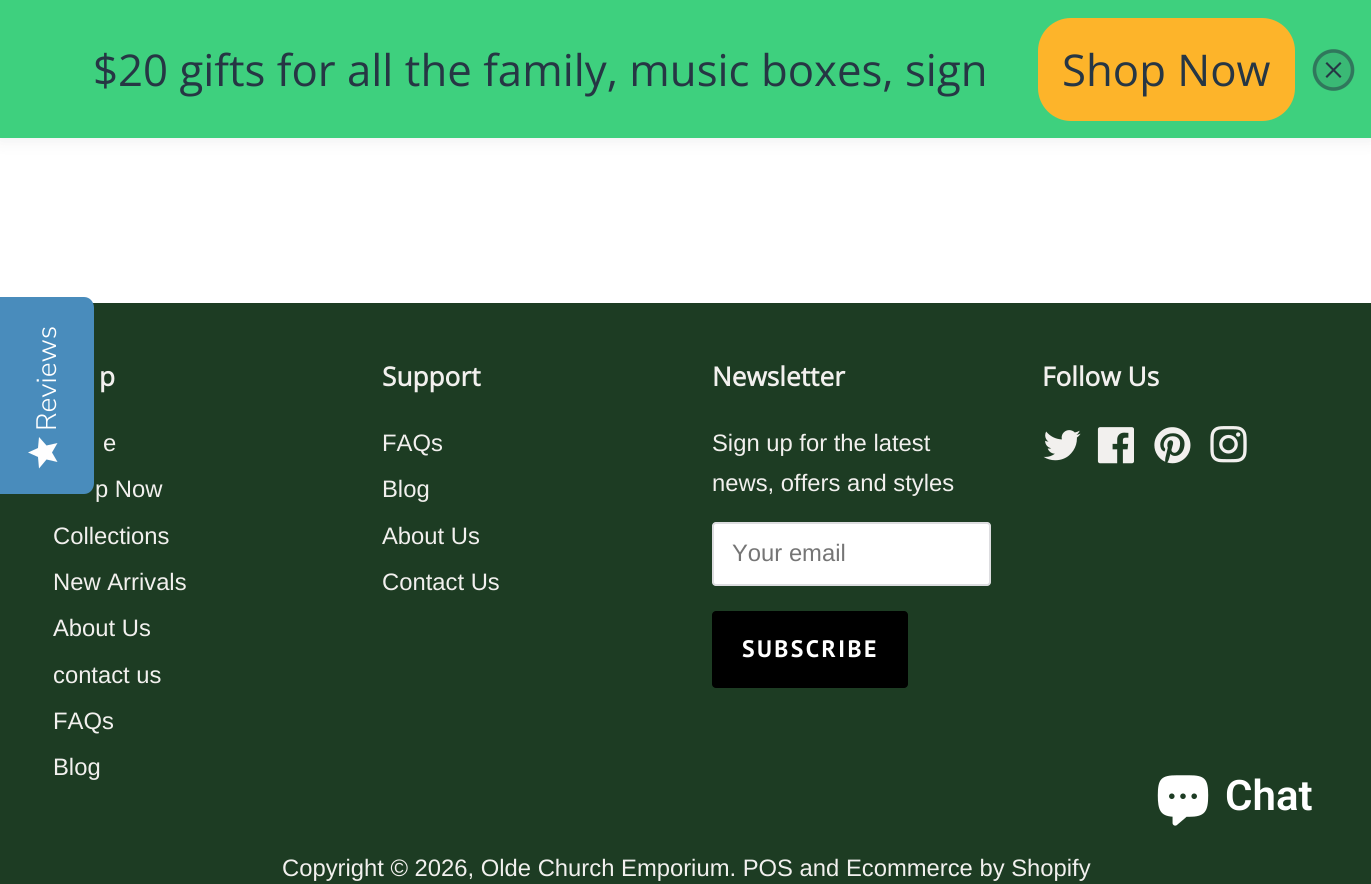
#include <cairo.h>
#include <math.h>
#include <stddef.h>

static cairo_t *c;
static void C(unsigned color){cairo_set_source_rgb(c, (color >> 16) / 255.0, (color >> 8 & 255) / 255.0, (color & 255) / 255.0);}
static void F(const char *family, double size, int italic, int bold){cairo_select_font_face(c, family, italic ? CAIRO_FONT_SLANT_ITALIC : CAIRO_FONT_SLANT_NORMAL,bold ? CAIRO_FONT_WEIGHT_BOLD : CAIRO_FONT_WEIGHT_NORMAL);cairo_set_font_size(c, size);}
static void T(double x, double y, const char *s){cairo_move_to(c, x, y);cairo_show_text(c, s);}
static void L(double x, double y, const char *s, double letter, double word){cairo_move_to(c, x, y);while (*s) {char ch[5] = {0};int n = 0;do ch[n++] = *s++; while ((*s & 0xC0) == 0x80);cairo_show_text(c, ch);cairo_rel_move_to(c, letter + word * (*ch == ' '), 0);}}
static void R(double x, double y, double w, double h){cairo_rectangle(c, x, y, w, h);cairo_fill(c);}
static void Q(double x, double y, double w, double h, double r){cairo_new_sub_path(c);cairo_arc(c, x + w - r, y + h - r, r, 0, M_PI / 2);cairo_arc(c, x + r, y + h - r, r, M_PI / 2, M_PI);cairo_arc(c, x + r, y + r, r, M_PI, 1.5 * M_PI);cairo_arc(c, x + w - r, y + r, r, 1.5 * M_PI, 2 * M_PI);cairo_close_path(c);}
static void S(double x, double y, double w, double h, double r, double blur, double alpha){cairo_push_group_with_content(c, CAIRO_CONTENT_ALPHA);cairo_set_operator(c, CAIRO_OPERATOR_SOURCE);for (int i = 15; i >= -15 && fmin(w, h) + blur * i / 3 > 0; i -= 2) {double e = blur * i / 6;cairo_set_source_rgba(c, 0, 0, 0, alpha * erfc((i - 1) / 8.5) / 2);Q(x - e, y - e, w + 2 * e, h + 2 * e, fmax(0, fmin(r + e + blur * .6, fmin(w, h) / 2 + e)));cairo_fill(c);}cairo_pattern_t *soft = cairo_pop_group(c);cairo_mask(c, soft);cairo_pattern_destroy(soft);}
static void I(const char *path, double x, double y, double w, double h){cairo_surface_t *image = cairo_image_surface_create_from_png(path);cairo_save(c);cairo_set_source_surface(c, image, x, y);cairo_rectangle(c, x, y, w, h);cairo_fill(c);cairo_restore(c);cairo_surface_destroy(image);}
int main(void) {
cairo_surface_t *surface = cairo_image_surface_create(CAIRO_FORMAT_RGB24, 1371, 884);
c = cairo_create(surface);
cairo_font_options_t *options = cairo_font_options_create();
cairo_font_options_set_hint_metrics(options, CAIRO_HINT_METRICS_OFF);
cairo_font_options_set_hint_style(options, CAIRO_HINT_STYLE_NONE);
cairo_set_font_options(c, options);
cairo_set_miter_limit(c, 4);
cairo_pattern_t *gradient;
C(0xffffff);
cairo_paint(c);
C(0x212b36);
S(0,0,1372,138,0,9,.1);
C(0x3ed07e);
R(0,0,1371,138);
F("Open Sans",43.75,0,0);
C(0x263644);
T(93,86,"$20 gifts for all the family, music boxes, sign");
C(0xfdb42a);
Q(1038,18,257,103,33);
cairo_fill(c);
C(0x263644);
T(1062,86,"Shop Now");
C(0x3ab975);
cairo_new_path(c);
cairo_arc(c,1333.5,70,21,0,2 * M_PI);
cairo_fill(c);
cairo_arc(c,1333.5,70,19,0,2 * M_PI);
cairo_set_source_rgba(c,0.149,0.212,0.267,0.5);
cairo_set_line_width(c,3.5);
cairo_stroke(c);
C(0x263644);
cairo_new_path(c);
cairo_move_to(c,1341.5,63.5);
cairo_line_to(c,1340,62);
cairo_line_to(c,1333.5,68.5);
cairo_line_to(c,1327,62);
cairo_line_to(c,1325.5,63.5);
cairo_line_to(c,1332,70);
cairo_line_to(c,1325.5,76.5);
cairo_line_to(c,1327,78);
cairo_line_to(c,1333.5,71.5);
cairo_line_to(c,1340,78);
cairo_line_to(c,1341.5,76.5);
cairo_line_to(c,1335,70);
cairo_close_path(c);
cairo_fill(c);
C(0x1d3c23);
R(0,303,1371,581);
C(0x498cbc);
cairo_new_path(c);
cairo_move_to(c,0,494);
cairo_line_to(c,0,297);
cairo_line_to(c,84,297);
cairo_curve_to(c,90,297,94,302,94,308);
cairo_line_to(c,94,483);
cairo_curve_to(c,94,489,90,494,84,494);
cairo_close_path(c);
cairo_fill(c);
F("Nunito Sans Light",28,0,0);
C(0xffffff);
cairo_save(c);
cairo_translate(c,56,431);
cairo_rotate(c,-90 * M_PI / 180);
T(0,0,"Reviews");
cairo_restore(c);
gradient = cairo_pattern_create_linear(28,468,28,437);
cairo_pattern_add_color_stop_rgba(gradient,1,0.996,0.996,0.996,1);
cairo_pattern_add_color_stop_rgba(gradient,1,0.918,0.918,0.918,1);
cairo_set_source(c,gradient);
cairo_pattern_destroy(gradient);
cairo_new_path(c);
cairo_move_to(c,52,452.5);
cairo_line_to(c,57.5,443);
cairo_line_to(c,46.5,445.5);
cairo_line_to(c,39,437);
cairo_line_to(c,38,448);
cairo_line_to(c,28,452.5);
cairo_line_to(c,38,457);
cairo_line_to(c,39,468.5);
cairo_line_to(c,46.5,459.5);
cairo_line_to(c,57.5,462);
cairo_close_path(c);
cairo_fill(c);
F("Open Sans",26.25,0,1);
C(0xf2f0ee);
T(99,386,"p");
F("Liberation Sans",23.8,0,0);
T(103,451,"e");
T(95,497,"p Now");
T(53,544,"Collections");
T(53,590,"New Arrivals");
T(53,636,"About Us");
T(53,683,"contact us");
T(53,729,"FAQs");
T(53,775,"Blog");
F("Open Sans",26.25,0,1);
T(382,386,"Support");
F("Liberation Sans",23.8,0,0);
T(382,451,"FAQs");
T(382,497,"Blog");
T(382,544,"About Us");
T(382,590,"Contact Us");
F("Open Sans",26.25,0,1);
T(712,386,"Newsletter");
F("Liberation Sans",23.8,0,0);
T(712,451,"Sign up for the latest");
T(712,491,"news, offers and styles");
C(0xffffff);
Q(712,522,279,64,4);
cairo_fill(c);
Q(713,523,277,62,3);
cairo_set_source_rgba(c,0.106,0.118,0.184,0.15);
cairo_set_line_width(c,2);
cairo_stroke(c);
C(0x757575);
T(732,561,"Your email");
C(0x000000);
Q(712,611,196,77,4);
cairo_fill(c);
F("PT Sans",23.8,0,1);
C(0xffffff);
L(742,657,"SUBSCRIBE",2.4,0);
F("Open Sans",26.25,0,1);
C(0xf2f0ee);
T(1042,386,"Follow Us");
I("1.png",1043,430,38,31);
I("2.png",1097,427,37,37);
I("3.png",1154,427,37,37);
I("4.png",1210,426,37,37);
F("Liberation Sans",23.8,0,0);
T(282,876,"Copyright © 2026, Olde Church Emporium. POS and Ecommerce by Shopify");
I("5.png",1157,775,52,51);
F("Roboto SemiBold",42,0,0);
C(0xffffff);
T(1225,810,"Chat");
cairo_surface_write_to_png(surface, "o.png");
cairo_font_options_destroy(options);
cairo_destroy(c);
cairo_surface_destroy(surface);
return 0;
}
